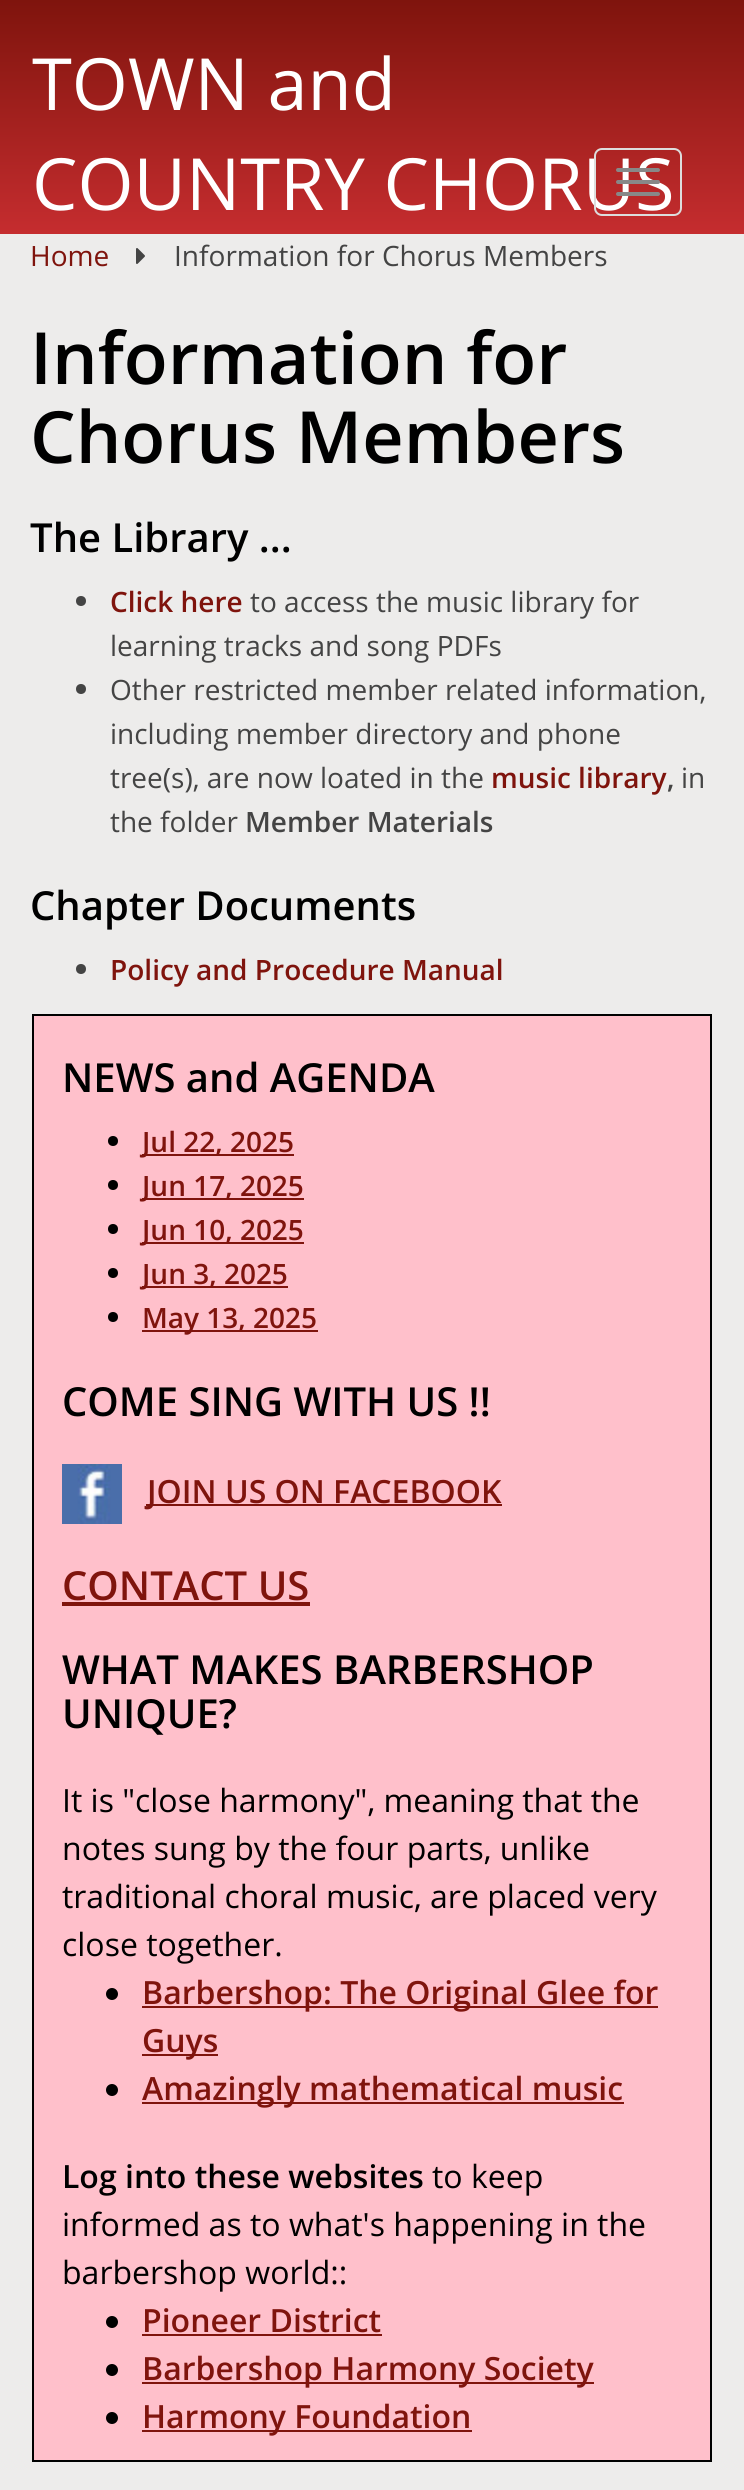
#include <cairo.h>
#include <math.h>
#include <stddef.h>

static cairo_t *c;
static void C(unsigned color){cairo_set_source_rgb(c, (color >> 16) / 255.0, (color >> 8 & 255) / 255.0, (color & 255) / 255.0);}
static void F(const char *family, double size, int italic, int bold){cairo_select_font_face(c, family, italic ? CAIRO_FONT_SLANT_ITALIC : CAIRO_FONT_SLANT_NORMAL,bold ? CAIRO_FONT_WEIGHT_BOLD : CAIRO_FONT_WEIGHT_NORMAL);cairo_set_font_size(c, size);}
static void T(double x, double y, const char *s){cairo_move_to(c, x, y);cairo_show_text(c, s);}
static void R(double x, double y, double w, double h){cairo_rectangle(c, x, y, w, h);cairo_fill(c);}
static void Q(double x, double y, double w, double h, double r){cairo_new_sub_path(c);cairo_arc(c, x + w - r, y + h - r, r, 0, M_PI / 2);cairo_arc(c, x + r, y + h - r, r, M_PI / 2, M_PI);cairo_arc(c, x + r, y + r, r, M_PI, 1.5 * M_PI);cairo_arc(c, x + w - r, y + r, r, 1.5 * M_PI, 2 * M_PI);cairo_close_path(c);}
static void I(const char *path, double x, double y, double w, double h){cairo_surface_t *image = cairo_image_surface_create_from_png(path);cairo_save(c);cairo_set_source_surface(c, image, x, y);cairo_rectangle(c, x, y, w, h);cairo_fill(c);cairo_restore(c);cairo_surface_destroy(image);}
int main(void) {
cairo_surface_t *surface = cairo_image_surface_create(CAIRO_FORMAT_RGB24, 744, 2490);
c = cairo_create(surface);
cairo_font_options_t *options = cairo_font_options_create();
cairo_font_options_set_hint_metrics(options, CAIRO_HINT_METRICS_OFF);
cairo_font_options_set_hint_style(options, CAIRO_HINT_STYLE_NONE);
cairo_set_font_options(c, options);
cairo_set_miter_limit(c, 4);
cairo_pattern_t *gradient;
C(0xedeceb);
cairo_paint(c);
gradient = cairo_pattern_create_linear(372,0,372,234);
cairo_pattern_add_color_stop_rgba(gradient,0,0.498,0.078,0.051,1);
cairo_pattern_add_color_stop_rgba(gradient,1,0.773,0.176,0.184,1);
cairo_set_source(c,gradient);
cairo_pattern_destroy(gradient);
R(0,0,744,234);
F("Open Sans",72,0,0);
C(0xffffff);
T(32,110,"TOWN and");
T(32,210,"COUNTRY CHORUS");
Q(595,149,86,66,7);
C(0xdddddd);
cairo_stroke(c);
C(0x888888);
Q(616,168,44,4,2);
cairo_fill(c);
Q(616,180,44,4,2);
cairo_fill(c);
Q(616,192,44,4,2);
cairo_fill(c);
F("Open Sans",28,0,0);
C(0x7f140d);
T(30,266,"Home");
I("1.png",136,248,9,16);
C(0x444444);
T(174,266,"Information for Chorus Members");
F("Open Sans SemiBold",72,0,0);
C(0x000000);
T(30,384,"Information for");
T(30,463,"Chorus Members");
F("Open Sans SemiBold",40,0,0);
T(30,552,"The Library ...");
C(0x444444);
cairo_new_path(c);
cairo_arc(c,81,601,5,0,2 * M_PI);
cairo_fill(c);
F("Open Sans SemiBold",28,0,0);
C(0x7f140d);
T(110,612,"Click here");
F("Open Sans",28,0,0);
C(0x444444);
T(250,612,"to access the music library for");
T(110,656,"learning tracks and song PDFs");
cairo_new_path(c);
cairo_arc(c,81,689,5,0,2 * M_PI);
cairo_fill(c);
T(110,700,"Other restricted member related information,");
T(110,744,"including member directory and phone");
T(110,788,"tree(s), are now loated in the");
F("Open Sans SemiBold",28,0,0);
C(0x7f140d);
T(491,788,"music library");
C(0x444444);
T(667,788,",");
F("Open Sans",28,0,0);
T(681,788,"in");
T(110,832,"the folder");
F("Open Sans SemiBold",28,0,0);
T(245,832,"Member Materials");
F("Open Sans SemiBold",40,0,0);
C(0x000000);
T(30,920,"Chapter Documents");
C(0x444444);
cairo_new_path(c);
cairo_arc(c,81,969,5,0,2 * M_PI);
cairo_fill(c);
F("Open Sans SemiBold",28,0,0);
C(0x7f140d);
T(110,980,"Policy and Procedure Manual");
C(0xffc0cb);
cairo_rectangle(c,33,1015,678,1446);
cairo_fill_preserve(c);
C(0x000000);
cairo_stroke(c);
F("Open Sans SemiBold",40,0,0);
T(62,1092,"NEWS and AGENDA");
cairo_new_path(c);
cairo_arc(c,113,1141,5,0,2 * M_PI);
cairo_fill(c);
C(0x7f140d);
R(142,1154,152,2);
F("Open Sans SemiBold",28,0,0);
T(142,1152,"Jul 22, 2025");
C(0x000000);
cairo_new_path(c);
cairo_arc(c,113,1185,5,0,2 * M_PI);
cairo_fill(c);
C(0x7f140d);
R(142,1198,162,2);
T(142,1196,"Jun 17, 2025");
C(0x000000);
cairo_new_path(c);
cairo_arc(c,113,1229,5,0,2 * M_PI);
cairo_fill(c);
C(0x7f140d);
R(142,1242,162,2);
T(142,1240,"Jun 10, 2025");
C(0x000000);
cairo_new_path(c);
cairo_arc(c,113,1273,5,0,2 * M_PI);
cairo_fill(c);
C(0x7f140d);
R(142,1286,146,2);
T(142,1284,"Jun 3, 2025");
C(0x000000);
cairo_new_path(c);
cairo_arc(c,113,1317,5,0,2 * M_PI);
cairo_fill(c);
C(0x7f140d);
R(142,1330,176,2);
T(142,1328,"May 13, 2025");
F("Open Sans SemiBold",40,0,0);
C(0x000000);
T(62,1416,"COME SING WITH US !!");
I("2.png",62,1464,60,60);
C(0x7f140d);
R(146,1504,356,2);
F("Open Sans SemiBold",32,0,0);
T(147,1503,"JOIN US ON FACEBOOK");
F("Open Sans SemiBold",40,0,0);
T(62,1600,"CONTACT US");
R(62,1602,248,4);
C(0x000000);
T(62,1684,"WHAT MAKES BARBERSHOP");
T(62,1728,"UNIQUE?");
F("Open Sans",32,0,0);
T(62,1812,"It is \"close harmony\", meaning that the");
T(62,1860,"notes sung by the four parts, unlike");
T(62,1908,"traditional choral music, are placed very");
T(62,1956,"close together.");
cairo_new_path(c);
cairo_arc(c,112,1994,6,0,2 * M_PI);
cairo_fill(c);
C(0x7f140d);
R(142,2006,516,2);
F("Open Sans SemiBold",32,0,0);
T(142,2004,"Barbershop: The Original Glee for");
R(142,2054,76,2);
T(142,2052,"Guys");
C(0x000000);
cairo_new_path(c);
cairo_arc(c,112,2090,6,0,2 * M_PI);
cairo_fill(c);
C(0x7f140d);
R(142,2102,482,2);
T(142,2100,"Amazingly mathematical music");
C(0x000000);
T(62,2188,"Log into these websites");
F("Open Sans",32,0,0);
T(432,2188,"to keep");
T(62,2236,"informed as to what's happening in the");
T(62,2284,"barbershop world::");
cairo_new_path(c);
cairo_arc(c,112,2322,6,0,2 * M_PI);
cairo_fill(c);
F("Open Sans SemiBold",32,0,0);
C(0x7f140d);
T(142,2332,"Pioneer District");
R(142,2334,240,2);
C(0x000000);
cairo_new_path(c);
cairo_arc(c,112,2370,6,0,2 * M_PI);
cairo_fill(c);
C(0x7f140d);
R(142,2382,452,2);
T(142,2380,"Barbershop Harmony Society");
C(0x000000);
cairo_new_path(c);
cairo_arc(c,112,2418,6,0,2 * M_PI);
cairo_fill(c);
C(0x7f140d);
R(142,2430,330,2);
T(142,2428,"Harmony Foundation");
cairo_surface_write_to_png(surface, "o.png");
cairo_font_options_destroy(options);
cairo_destroy(c);
cairo_surface_destroy(surface);
return 0;
}
